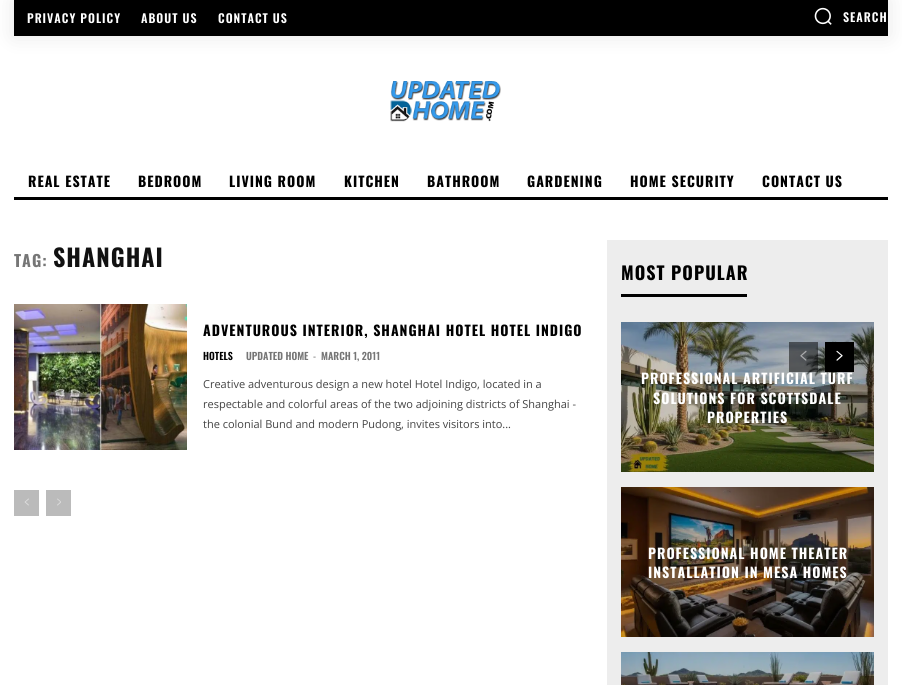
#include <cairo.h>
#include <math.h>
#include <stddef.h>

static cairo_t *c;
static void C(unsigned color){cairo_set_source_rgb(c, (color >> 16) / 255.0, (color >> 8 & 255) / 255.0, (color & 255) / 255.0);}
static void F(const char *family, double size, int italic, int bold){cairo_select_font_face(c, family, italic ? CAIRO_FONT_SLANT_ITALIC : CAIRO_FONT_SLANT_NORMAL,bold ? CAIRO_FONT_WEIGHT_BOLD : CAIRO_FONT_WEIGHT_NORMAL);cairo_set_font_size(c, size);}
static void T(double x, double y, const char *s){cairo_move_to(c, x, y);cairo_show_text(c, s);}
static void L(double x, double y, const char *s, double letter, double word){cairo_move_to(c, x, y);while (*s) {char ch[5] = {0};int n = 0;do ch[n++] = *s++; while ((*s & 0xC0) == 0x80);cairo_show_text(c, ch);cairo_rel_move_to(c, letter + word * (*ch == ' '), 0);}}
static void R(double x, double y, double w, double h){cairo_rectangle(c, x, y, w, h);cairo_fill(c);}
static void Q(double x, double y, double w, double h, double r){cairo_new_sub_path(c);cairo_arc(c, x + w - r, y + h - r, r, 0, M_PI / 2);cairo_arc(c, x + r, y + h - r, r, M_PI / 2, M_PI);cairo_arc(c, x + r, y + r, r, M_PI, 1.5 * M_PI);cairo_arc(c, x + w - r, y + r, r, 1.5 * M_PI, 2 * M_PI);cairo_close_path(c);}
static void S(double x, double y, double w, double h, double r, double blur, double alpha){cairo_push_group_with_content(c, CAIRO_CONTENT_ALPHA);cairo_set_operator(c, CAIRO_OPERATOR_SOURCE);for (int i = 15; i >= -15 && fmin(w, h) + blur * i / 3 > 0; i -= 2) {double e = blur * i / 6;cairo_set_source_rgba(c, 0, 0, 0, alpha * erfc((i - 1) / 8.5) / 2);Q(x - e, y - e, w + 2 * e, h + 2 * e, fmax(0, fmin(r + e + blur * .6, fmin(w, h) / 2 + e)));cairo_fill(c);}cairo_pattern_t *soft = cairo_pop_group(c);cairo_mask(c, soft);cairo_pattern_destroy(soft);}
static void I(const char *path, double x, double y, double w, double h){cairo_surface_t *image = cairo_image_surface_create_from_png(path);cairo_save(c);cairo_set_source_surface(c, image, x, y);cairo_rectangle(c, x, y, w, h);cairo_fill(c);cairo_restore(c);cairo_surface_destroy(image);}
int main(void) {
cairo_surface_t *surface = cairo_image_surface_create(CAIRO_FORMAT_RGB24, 902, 685);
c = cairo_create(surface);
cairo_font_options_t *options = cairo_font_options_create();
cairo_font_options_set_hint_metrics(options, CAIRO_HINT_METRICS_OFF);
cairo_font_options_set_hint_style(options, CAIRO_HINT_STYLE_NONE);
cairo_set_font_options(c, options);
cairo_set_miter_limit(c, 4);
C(0xffffff);
cairo_paint(c);
C(0x000000);
S(14,0,874,36,0,10,.1);
C(0x000000);
R(14,0,874,36);
F("Oswald SemiBold",12,0,0);
C(0xffffff);
L(27,23,"PRIVACY POLICY",1,0);
L(141,23,"ABOUT US",1,0);
L(218,23,"CONTACT US",1,0);
I("1.png",814,7,18,18);
L(843,22,"SEARCH",1,0);
I("2.png",390,81,111,41);
F("Oswald",14,0,1);
C(0x000000);
L(28,187,"REAL ESTATE",1,0);
L(138,187,"BEDROOM",1,0);
L(229,187,"LIVING ROOM",1,0);
L(344,187,"KITCHEN",1,0);
L(427,187,"BATHROOM",1,0);
L(527,187,"GARDENING",1,0);
L(630,187,"HOME SECURITY",1,0);
L(762,187,"CONTACT US",1,0);
R(14,197,874,3);
F("Oswald",16,0,1);
C(0x767676);
L(14,267,"TAG:",1,0);
F("Oswald",24,0,1);
C(0x111111);
L(53,267,"SHANGHAI",1,0);
I("3.png",14,304,173,146);
F("Oswald",14,0,1);
C(0x000000);
L(203,336,"ADVENTUROUS INTERIOR, SHANGHAI HOTEL HOTEL INDIGO",1,0);
F("Oswald SemiBold",10,0,0);
T(203,360,"HOTELS");
C(0x767676);
T(246,360,"UPDATED HOME");
F("Oswald",10,0,0);
T(313,360,"-");
F("Oswald SemiBold",10,0,0);
T(321,360,"MARCH 1, 2011");
F("Open Sans",11,0,0);
C(0x444444);
T(203,388,"Creative adventurous design a new hotel Hotel Indigo, located in a");
T(203,408,"respectable and colorful areas of the two adjoining districts of Shanghai -");
T(203,428,"the colonial Bund and modern Pudong, invites visitors into...");
C(0xbbbbbb);
R(14,490,25,26);
I("4.png",24,498,5,8);
R(46,490,25,26);
I("5.png",57,498,4,8);
C(0xededed);
R(607,240,281,445);
F("Oswald",18,0,1);
C(0x000000);
L(621,280,"MOST POPULAR",1,0);
R(621,294,126,3);
I("8.png",621,322,253,150);
cairo_set_source_rgba(c,0,0,0,0.5);
R(789,342,29,30);
I("6.png",800,350,7,11);
C(0x000000);
R(825,342,29,30);
I("7.png",836,350,7,11);
F("Oswald",14,0,1);
C(0xffffff);
L(641,384,"PROFESSIONAL ARTIFICIAL TURF",1,0);
L(653,404,"SOLUTIONS FOR SCOTTSDALE",1,0);
L(707,423,"PROPERTIES",1,0);
I("9.png",621,487,253,150);
L(648,559,"PROFESSIONAL HOME THEATER",1,0);
L(648,578,"INSTALLATION IN MESA HOMES",1,0);
I("10.png",621,652,253,33);
cairo_surface_write_to_png(surface, "o.png");
cairo_font_options_destroy(options);
cairo_destroy(c);
cairo_surface_destroy(surface);
return 0;
}
